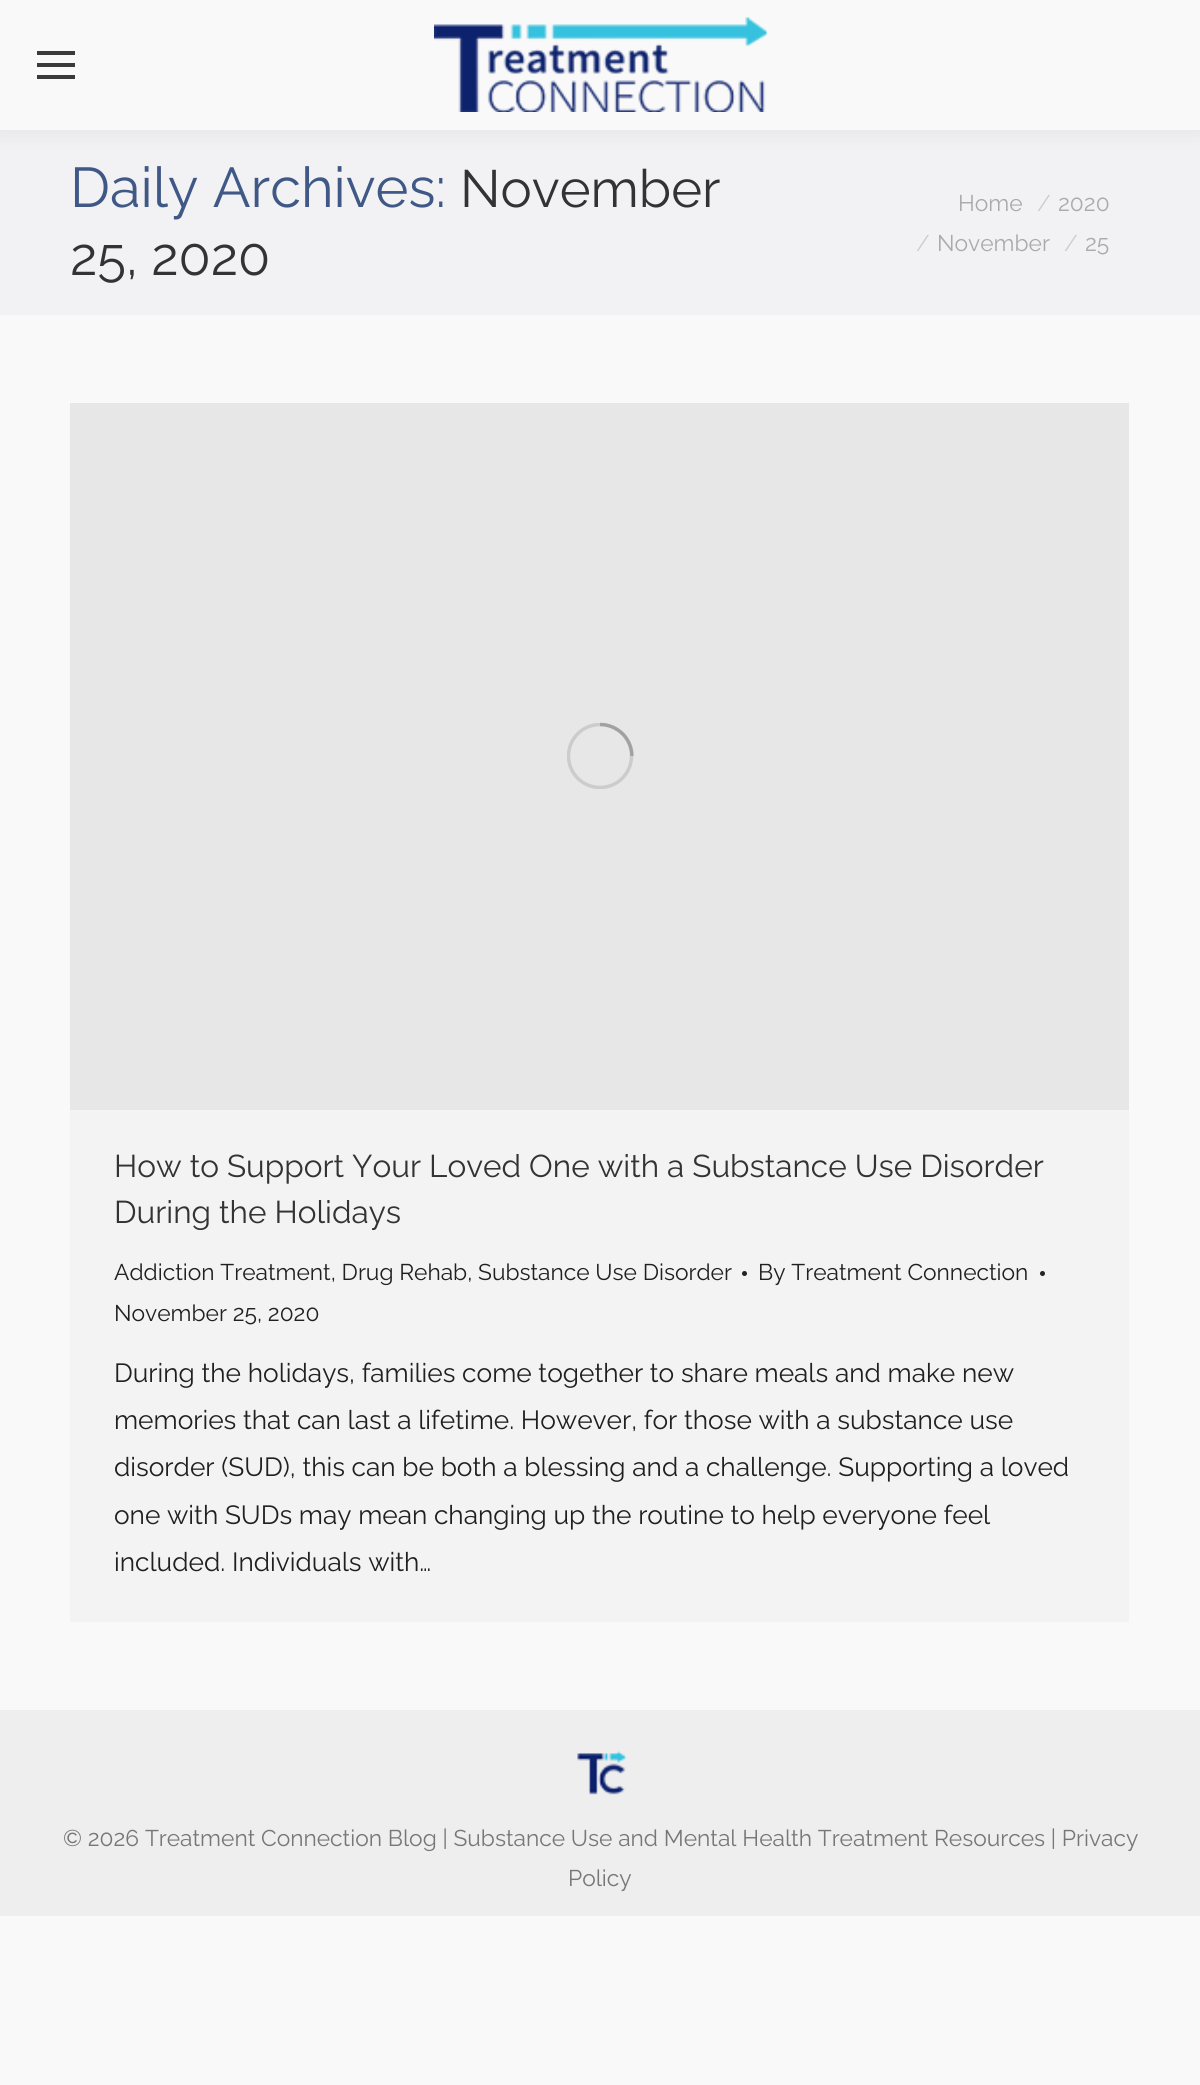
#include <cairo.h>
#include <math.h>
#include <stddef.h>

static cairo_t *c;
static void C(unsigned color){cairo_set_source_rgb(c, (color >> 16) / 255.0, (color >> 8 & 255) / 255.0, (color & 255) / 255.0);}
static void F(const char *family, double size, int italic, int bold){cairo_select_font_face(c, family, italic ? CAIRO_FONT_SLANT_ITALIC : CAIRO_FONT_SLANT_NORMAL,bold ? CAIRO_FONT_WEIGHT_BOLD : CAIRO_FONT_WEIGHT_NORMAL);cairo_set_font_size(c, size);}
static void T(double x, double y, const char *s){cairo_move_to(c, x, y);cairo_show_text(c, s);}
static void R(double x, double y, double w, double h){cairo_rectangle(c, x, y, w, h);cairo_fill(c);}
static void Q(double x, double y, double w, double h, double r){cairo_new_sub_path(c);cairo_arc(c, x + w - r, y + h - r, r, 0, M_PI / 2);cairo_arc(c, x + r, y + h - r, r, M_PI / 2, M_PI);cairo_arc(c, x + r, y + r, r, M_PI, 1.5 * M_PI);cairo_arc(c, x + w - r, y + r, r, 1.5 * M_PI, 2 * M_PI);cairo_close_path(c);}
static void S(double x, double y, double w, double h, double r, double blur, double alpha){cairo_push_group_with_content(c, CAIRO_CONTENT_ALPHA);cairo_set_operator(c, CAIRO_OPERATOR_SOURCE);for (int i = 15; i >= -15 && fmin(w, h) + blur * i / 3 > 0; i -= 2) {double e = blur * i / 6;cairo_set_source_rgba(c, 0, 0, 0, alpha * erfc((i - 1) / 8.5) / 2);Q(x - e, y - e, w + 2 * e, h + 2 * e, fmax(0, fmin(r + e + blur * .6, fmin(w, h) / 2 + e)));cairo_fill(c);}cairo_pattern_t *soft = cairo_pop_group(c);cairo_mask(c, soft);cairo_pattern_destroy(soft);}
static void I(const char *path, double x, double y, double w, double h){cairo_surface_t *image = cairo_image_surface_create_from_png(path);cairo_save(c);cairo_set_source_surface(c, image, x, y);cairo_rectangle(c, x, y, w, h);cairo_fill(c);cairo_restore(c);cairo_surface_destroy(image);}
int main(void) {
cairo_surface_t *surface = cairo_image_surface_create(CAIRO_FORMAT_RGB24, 1200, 2085);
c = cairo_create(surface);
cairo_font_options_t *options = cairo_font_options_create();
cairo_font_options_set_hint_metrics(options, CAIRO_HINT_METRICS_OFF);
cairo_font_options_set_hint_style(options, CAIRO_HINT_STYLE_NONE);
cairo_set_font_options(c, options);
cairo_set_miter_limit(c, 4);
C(0xf9f9f9);
cairo_paint(c);
C(0xf2f2f4);
R(0,130,1200,185);
C(0x000000);
S(-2,-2,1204,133,0,13,.07);
C(0xf9f9f9);
R(0,0,1200,130);
C(0x3a3a3a);
R(37,51,38,4);
R(37,63,38,4);
R(37,75,38,4);
I("1.png",434,17,333,95);
F("Raleway",56,0,0);
C(0x3f5886);
T(70,207,"Daily Archives:");
F("Raleway",52.5,0,0);
C(0x333333);
T(460,207,"November");
T(70,275,"25, 2020");
F("Raleway",22.75,0,0);
C(0xaaaaaa);
T(958,211,"Home");
C(0xcececf);
T(1037,211,"/");
C(0xaaaaaa);
T(1058,211,"2020");
C(0xcececf);
T(916,251,"/");
C(0xaaaaaa);
T(937,251,"November");
C(0xcececf);
T(1064,251,"/");
C(0xaaaaaa);
T(1085,251,"25");
C(0xf3f3f3);
R(70,1110,1059,512);
C(0xe7e7e7);
R(70,403,1059,707);
cairo_save(c);
cairo_rectangle(c,567,723,67,66);
cairo_clip(c);
cairo_arc(c,600,756,31.5,0,2 * M_PI);
C(0xcccccc);
cairo_set_line_width(c,3.5);
cairo_stroke(c);
cairo_restore(c);
cairo_new_path(c);
cairo_move_to(c,632,756);
cairo_curve_to(c,632,738.5,617.5,724.5,600,724.5);
cairo_set_source_rgba(c,0.137,0.137,0.137,0.25);
cairo_set_line_width(c,3.5);
cairo_stroke(c);
F("Raleway",31.5,0,0);
C(0x333333);
T(114,1177,"How to Support Your Loved One with a Substance Use Disorder");
T(114,1223,"During the Holidays");
F("Raleway",22.75,0,0);
C(0x202020);
T(114,1280,"Addiction Treatment, Drug Rehab, Substance Use Disorder");
C(0x232323);
cairo_new_path(c);
cairo_arc(c,744.5,1273.5,2.5,0,2 * M_PI);
cairo_fill(c);
C(0x202020);
T(758,1280,"By Treatment Connection");
C(0x232323);
cairo_new_path(c);
cairo_arc(c,1042.5,1273.5,2.5,0,2 * M_PI);
cairo_fill(c);
C(0x202020);
T(114,1321,"November 25, 2020");
F("Raleway",26.25,0,0);
T(114,1382,"During the holidays, families come together to share meals and make new");
T(114,1429,"memories that can last a lifetime. However, for those with a substance use");
T(114,1476,"disorder (SUD), this can be both a blessing and a challenge. Supporting a loved");
T(114,1524,"one with SUDs may mean changing up the routine to help everyone feel");
T(114,1571,"included. Individuals with…");
C(0xeeeeee);
R(0,1710,1200,206);
I("2.png",577,1751,50,44);
F("Raleway",22.75,0,0);
C(0x777777);
T(63,1846,"© 2026 Treatment Connection Blog | Substance Use and Mental Health Treatment Resources | Privacy");
T(568,1886,"Policy");
cairo_surface_write_to_png(surface, "o.png");
cairo_font_options_destroy(options);
cairo_destroy(c);
cairo_surface_destroy(surface);
return 0;
}
